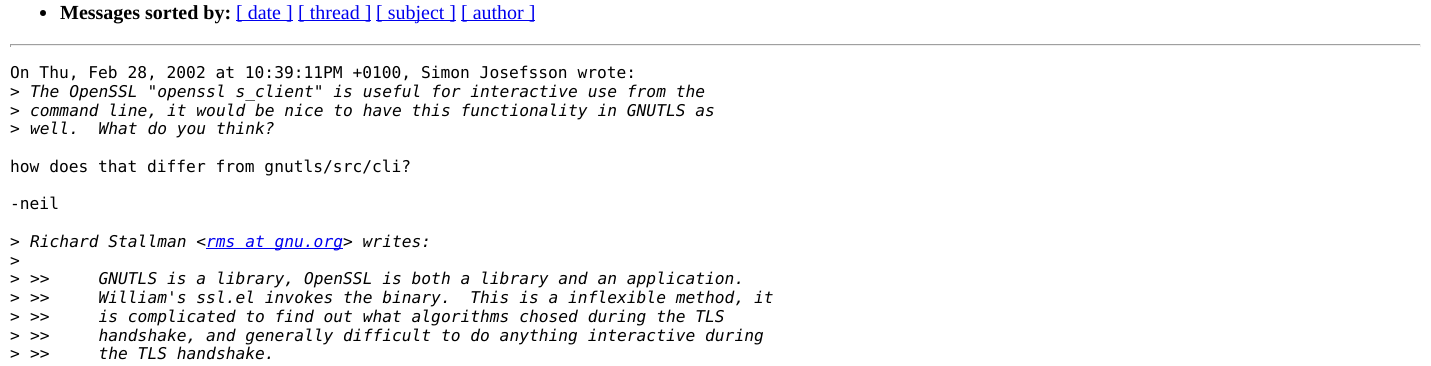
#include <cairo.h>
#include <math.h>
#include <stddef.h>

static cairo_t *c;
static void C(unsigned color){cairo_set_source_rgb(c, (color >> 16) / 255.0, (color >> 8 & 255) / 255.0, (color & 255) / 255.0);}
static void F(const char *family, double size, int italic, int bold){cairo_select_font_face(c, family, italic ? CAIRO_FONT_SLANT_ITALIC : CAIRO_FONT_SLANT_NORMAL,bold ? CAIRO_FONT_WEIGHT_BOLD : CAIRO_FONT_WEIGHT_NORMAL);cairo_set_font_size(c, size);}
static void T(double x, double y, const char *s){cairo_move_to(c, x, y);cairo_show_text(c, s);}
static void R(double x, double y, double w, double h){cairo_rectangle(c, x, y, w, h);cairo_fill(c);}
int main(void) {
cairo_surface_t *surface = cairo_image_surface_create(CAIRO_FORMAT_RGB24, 1431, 366);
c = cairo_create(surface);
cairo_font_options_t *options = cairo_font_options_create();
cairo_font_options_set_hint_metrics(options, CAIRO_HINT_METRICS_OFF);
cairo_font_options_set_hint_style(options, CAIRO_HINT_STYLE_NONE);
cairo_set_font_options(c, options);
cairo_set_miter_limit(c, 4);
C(0xffffff);
cairo_paint(c);
C(0x000000);
cairo_arc(c,43,13,3,0,2 * M_PI);
cairo_fill(c);
F("Liberation Serif",20,0,1);
T(60,19,"Messages sorted by:");
C(0x0000ee);
R(236,20,57,1);
F("Liberation Serif",20,0,0);
T(236,19,"[ date ]");
R(298,20,73,1);
T(298,19,"[ thread ]");
R(376,20,80,1);
T(376,19,"[ subject ]");
R(461,20,74,1);
T(461,19,"[ author ]");
C(0x9f9f9f);
R(10,44,1411,1);
C(0xeeeeee);
R(1420,44,1,3);
R(10,45,1411,1);
C(0x9f9f9f);
R(10,44,1,3);
F("DejaVu Sans Mono",16.25,0,0);
C(0x000000);
T(10,78,"On Thu, Feb 28, 2002 at 10:39:11PM +0100, Simon Josefsson wrote:");
T(10,97,">");
F("DejaVu Sans Mono",16.25,1,0);
T(30,97,"The OpenSSL \"openssl s_client\" is useful for interactive use from the");
F("DejaVu Sans Mono",16.25,0,0);
T(10,116,">");
F("DejaVu Sans Mono",16.25,1,0);
T(30,116,"command line, it would be nice to have this functionality in GNUTLS as");
F("DejaVu Sans Mono",16.25,0,0);
T(10,134,">");
F("DejaVu Sans Mono",16.25,1,0);
T(30,134,"well.  What do you think?");
F("DejaVu Sans Mono",16.25,0,0);
T(10,172,"how does that differ from gnutls/src/cli?");
T(10,209,"-neil");
T(10,247,">");
F("DejaVu Sans Mono",16.25,1,0);
T(30,247,"Richard Stallman <");
C(0x0000ee);
R(206,248,137,1);
T(206,247,"rms at gnu.org");
C(0x000000);
T(343,247,"> writes:");
F("DejaVu Sans Mono",16.25,0,0);
T(10,266,">");
T(10,284,">");
F("DejaVu Sans Mono",16.25,1,0);
T(30,284,">>     GNUTLS is a library, OpenSSL is both a library and an application.");
F("DejaVu Sans Mono",16.25,0,0);
T(10,303,">");
F("DejaVu Sans Mono",16.25,1,0);
T(30,303,">>     William's ssl.el invokes the binary.  This is a inflexible method, it");
F("DejaVu Sans Mono",16.25,0,0);
T(10,322,">");
F("DejaVu Sans Mono",16.25,1,0);
T(30,322,">>     is complicated to find out what algorithms chosed during the TLS");
F("DejaVu Sans Mono",16.25,0,0);
T(10,341,">");
F("DejaVu Sans Mono",16.25,1,0);
T(30,341,">>     handshake, and generally difficult to do anything interactive during");
F("DejaVu Sans Mono",16.25,0,0);
T(10,359,">");
F("DejaVu Sans Mono",16.25,1,0);
T(30,359,">>     the TLS handshake.");
cairo_surface_write_to_png(surface, "o.png");
cairo_font_options_destroy(options);
cairo_destroy(c);
cairo_surface_destroy(surface);
return 0;
}
